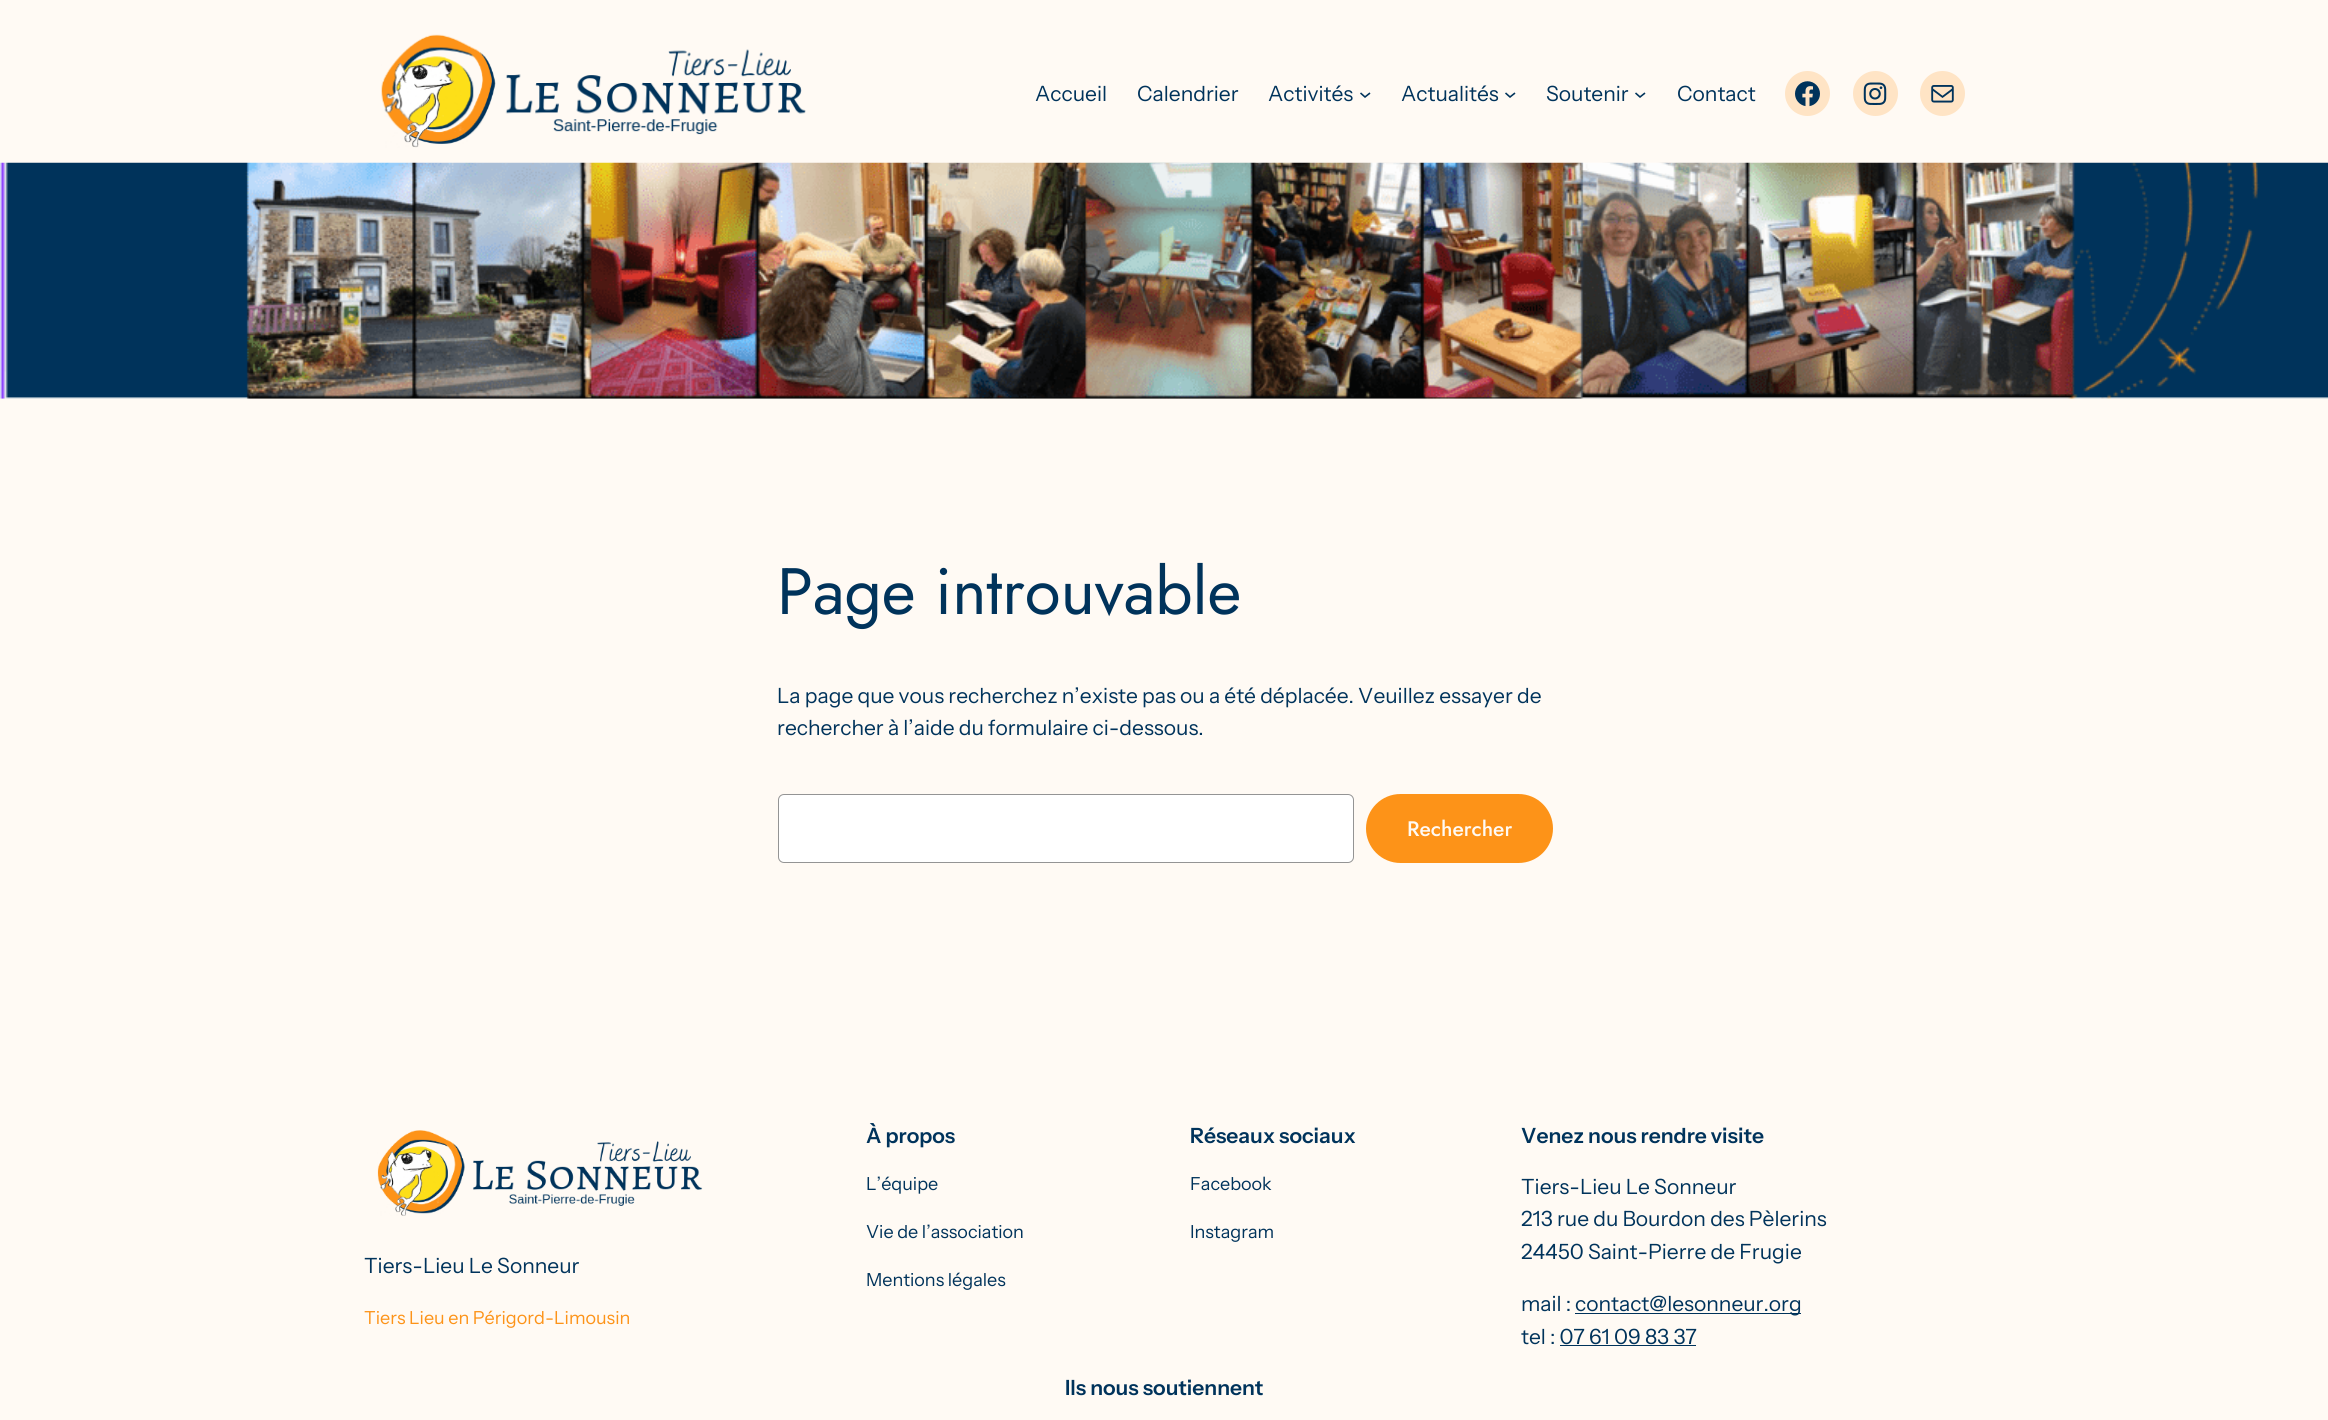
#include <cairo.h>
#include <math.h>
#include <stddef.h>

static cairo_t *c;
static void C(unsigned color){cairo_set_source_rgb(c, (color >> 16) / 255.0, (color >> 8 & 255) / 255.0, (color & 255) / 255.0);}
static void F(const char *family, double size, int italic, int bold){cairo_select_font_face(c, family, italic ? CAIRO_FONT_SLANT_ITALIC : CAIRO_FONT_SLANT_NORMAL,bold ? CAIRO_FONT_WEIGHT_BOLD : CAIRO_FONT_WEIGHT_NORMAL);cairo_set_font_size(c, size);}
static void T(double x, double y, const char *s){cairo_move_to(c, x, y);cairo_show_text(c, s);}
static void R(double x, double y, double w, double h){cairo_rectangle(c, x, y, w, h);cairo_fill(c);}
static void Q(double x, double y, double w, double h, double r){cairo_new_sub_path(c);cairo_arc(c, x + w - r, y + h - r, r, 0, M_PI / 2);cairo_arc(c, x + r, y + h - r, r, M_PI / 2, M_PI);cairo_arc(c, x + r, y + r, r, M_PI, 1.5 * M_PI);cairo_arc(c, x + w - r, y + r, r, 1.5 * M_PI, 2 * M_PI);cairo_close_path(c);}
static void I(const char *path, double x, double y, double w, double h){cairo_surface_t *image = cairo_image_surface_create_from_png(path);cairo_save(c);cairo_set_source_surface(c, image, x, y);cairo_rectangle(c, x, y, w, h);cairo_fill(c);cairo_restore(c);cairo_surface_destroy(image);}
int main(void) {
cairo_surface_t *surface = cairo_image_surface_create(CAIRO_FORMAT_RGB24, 2328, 1420);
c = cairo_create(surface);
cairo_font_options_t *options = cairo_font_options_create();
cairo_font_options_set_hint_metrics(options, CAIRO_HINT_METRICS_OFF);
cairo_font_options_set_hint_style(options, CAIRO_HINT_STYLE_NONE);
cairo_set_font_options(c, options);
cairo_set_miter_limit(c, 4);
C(0xfffaf4);
cairo_paint(c);
I("1.png",381,34,425,114);
F("Instrument Sans",21,0,0);
C(0x00335b);
T(1035,101,"Accueil");
T(1137,101,"Calendrier");
T(1268,101,"Activités");
cairo_new_path(c);
cairo_move_to(c,1360.5,93);
cairo_line_to(c,1365,97);
cairo_line_to(c,1370,93);
cairo_set_line_width(c,1.6);
cairo_stroke(c);
T(1401,101,"Actualités");
cairo_new_path(c);
cairo_move_to(c,1505.5,93);
cairo_line_to(c,1510,97);
cairo_line_to(c,1515,93);
cairo_stroke(c);
T(1546,101,"Soutenir");
cairo_new_path(c);
cairo_move_to(c,1635.5,93);
cairo_line_to(c,1640,97);
cairo_line_to(c,1645,93);
cairo_stroke(c);
T(1677,101,"Contact");
C(0xffe4c5);
cairo_new_path(c);
cairo_arc(c,1807.5,93.5,22.5,0,2 * M_PI);
cairo_fill(c);
I("2.png",1795,81,25,26);
cairo_arc(c,1875.5,93.5,22.5,0,2 * M_PI);
cairo_fill(c);
I("3.png",1863,82,24,23);
cairo_arc(c,1942.5,93.5,22.5,0,2 * M_PI);
cairo_fill(c);
I("4.png",1931,85,23,18);
I("5.png",0,162,2328,237);
F("Jost",65.5,0,0);
C(0x00335b);
T(777,614,"Page introuvable");
F("Instrument Sans",21,0,0);
T(777,703,"La page que vous recherchez n’existe pas ou a été déplacée. Veuillez essayer de");
T(777,735,"rechercher à l’aide du formulaire ci-dessous.");
C(0xffffff);
Q(778.5,794.5,575,68,5.5);
cairo_fill_preserve(c);
C(0x949494);
cairo_set_line_width(c,1);
cairo_stroke(c);
C(0xfd9318);
Q(1366,794,187,69,34.5);
cairo_fill(c);
F("Jost Medium",21,0,0);
C(0xfffaf4);
T(1407,836,"Rechercher");
I("6.png",377,1130,326,86);
F("Instrument Sans",21,0,0);
C(0x00335b);
T(364,1273,"Tiers-Lieu Le Sonneur");
F("Instrument Sans",18,0,0);
C(0xfd9318);
T(364,1324,"Tiers Lieu en Périgord-Limousin");
F("Instrument Sans SemiBold",21,0,0);
C(0x00335b);
T(866,1143,"À propos");
F("Instrument Sans",18,0,0);
T(866,1190,"L’équipe");
T(866,1238,"Vie de l’association");
T(866,1286,"Mentions légales");
F("Instrument Sans SemiBold",21,0,0);
T(1190,1143,"Réseaux sociaux");
F("Instrument Sans",18,0,0);
T(1190,1190,"Facebook");
T(1190,1238,"Instagram");
F("Instrument Sans SemiBold",21,0,0);
T(1521,1143,"Venez nous rendre visite");
F("Instrument Sans",21,0,0);
T(1521,1194,"Tiers-Lieu Le Sonneur");
T(1521,1226,"213 rue du Bourdon des Pèlerins");
T(1521,1259,"24450 Saint-Pierre de Frugie");
T(1521,1311,"mail :");
R(1575,1313,226,1);
T(1575,1311,"contact@lesonneur.org");
T(1521,1344,"tel : 07 61 09 83 37");
R(1560,1345,136,1);
F("Instrument Sans SemiBold",21,0,0);
T(1065,1395,"Ils nous soutiennent");
cairo_surface_write_to_png(surface, "o.png");
cairo_font_options_destroy(options);
cairo_destroy(c);
cairo_surface_destroy(surface);
return 0;
}
